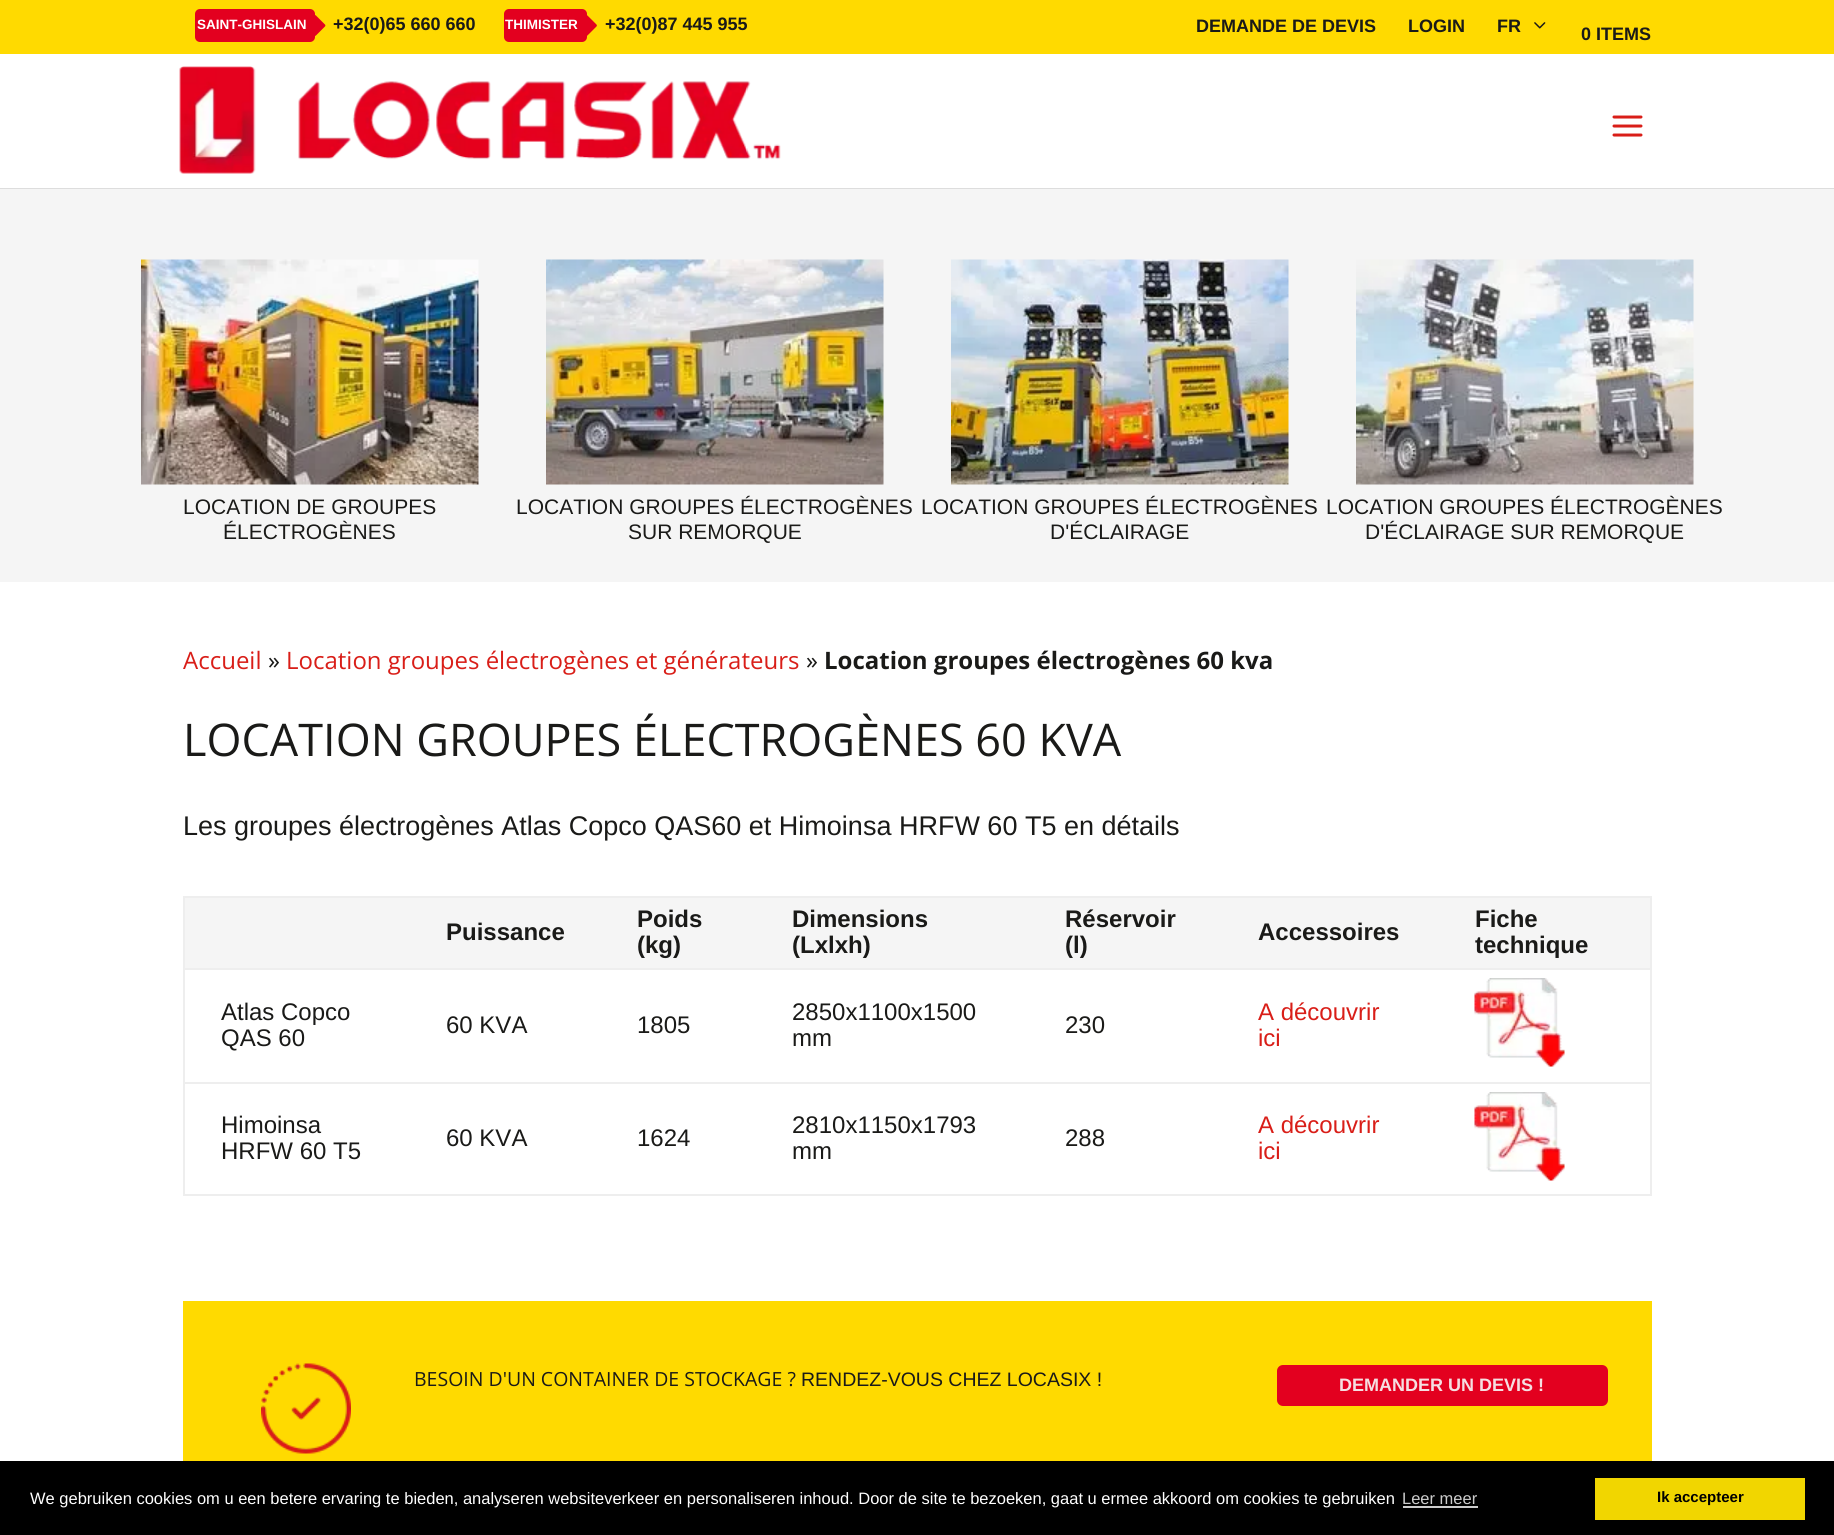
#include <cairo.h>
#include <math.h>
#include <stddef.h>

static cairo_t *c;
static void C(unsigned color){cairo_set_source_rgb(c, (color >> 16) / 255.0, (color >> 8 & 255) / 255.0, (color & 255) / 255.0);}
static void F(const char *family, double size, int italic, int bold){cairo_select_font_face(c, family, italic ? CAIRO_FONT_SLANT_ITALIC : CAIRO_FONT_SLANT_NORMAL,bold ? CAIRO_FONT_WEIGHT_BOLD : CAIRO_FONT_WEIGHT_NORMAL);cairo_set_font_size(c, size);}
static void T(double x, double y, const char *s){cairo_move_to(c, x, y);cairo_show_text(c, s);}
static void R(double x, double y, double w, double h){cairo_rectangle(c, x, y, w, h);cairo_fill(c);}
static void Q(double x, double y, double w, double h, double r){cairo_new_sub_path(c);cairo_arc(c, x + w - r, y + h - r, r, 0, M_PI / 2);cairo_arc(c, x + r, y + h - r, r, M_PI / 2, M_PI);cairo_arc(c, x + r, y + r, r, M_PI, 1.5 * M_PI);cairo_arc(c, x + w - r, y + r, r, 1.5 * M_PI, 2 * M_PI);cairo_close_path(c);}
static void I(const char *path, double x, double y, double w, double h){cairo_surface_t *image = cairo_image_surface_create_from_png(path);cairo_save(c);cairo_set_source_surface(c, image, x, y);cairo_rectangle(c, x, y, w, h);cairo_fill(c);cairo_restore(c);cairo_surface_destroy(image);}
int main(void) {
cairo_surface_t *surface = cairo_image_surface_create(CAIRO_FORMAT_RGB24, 1834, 1535);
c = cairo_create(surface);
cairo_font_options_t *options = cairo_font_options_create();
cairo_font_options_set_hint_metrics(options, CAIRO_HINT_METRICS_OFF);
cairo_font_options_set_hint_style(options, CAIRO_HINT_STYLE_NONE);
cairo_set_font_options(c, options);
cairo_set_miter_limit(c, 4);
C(0xffffff);
cairo_paint(c);
C(0xffda00);
R(0,0,1834,54);
C(0xe3001f);
Q(195,9,120,33,5);
cairo_fill(c);
F("Liberation Sans",13.5,0,1);
C(0xffffff);
T(197,29,"SAINT-GHISLAIN");
I("1.png",315,15,11,21);
F("Liberation Sans",18,0,1);
C(0x1a1a18);
T(333,30,"+32(0)65 660 660");
C(0xe3001f);
Q(504,9,83,33,5);
cairo_fill(c);
F("Liberation Sans",13.5,0,1);
C(0xffffff);
T(505,29,"THIMISTER");
I("2.png",587,15,10,21);
F("Liberation Sans",18,0,1);
C(0x1a1a18);
T(605,30,"+32(0)87 445 955");
T(1196,32,"DEMANDE DE DEVIS");
T(1408,32,"LOGIN");
T(1497,32,"FR");
I("3.png",1534,22,12,7);
T(1581,40,"0 ITEMS");
C(0xdddddd);
cairo_new_path(c);
cairo_move_to(c,0,188);
cairo_line_to(c,0,189);
cairo_line_to(c,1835,189);
cairo_line_to(c,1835,56);
cairo_line_to(c,1834,56);
cairo_line_to(c,1834,188);
cairo_close_path(c);
cairo_fill(c);
I("4.png",179,66,602,108);
I("5.png",1612,115,31,22);
C(0xf5f5f5);
R(0,189,1834,393);
I("6.png",141,259,338,226);
F("Liberation Sans",21,0,0);
C(0x1a1a18);
T(183,514,"LOCATION DE GROUPES");
T(223,539,"ÉLECTROGÈNES");
I("7.png",546,259,338,226);
T(516,514,"LOCATION GROUPES ÉLECTROGÈNES");
T(628,539,"SUR REMORQUE");
I("8.png",951,259,338,226);
T(921,514,"LOCATION GROUPES ÉLECTROGÈNES");
T(1050,539,"D'ÉCLAIRAGE");
I("9.png",1356,259,338,226);
T(1326,514,"LOCATION GROUPES ÉLECTROGÈNES");
T(1365,539,"D'ÉCLAIRAGE SUR REMORQUE");
F("Open Sans",24,0,0);
C(0xd91e18);
T(183,669,"Accueil");
C(0x1a1a18);
T(268,669,"»");
C(0xd91e18);
T(286,669,"Location groupes électrogènes et générateurs");
C(0x1a1a18);
T(806,669,"»");
F("Open Sans",24,0,1);
T(824,669,"Location groupes électrogènes 60 kva");
F("Open Sans",45,0,0);
T(183,756,"LOCATION GROUPES ÉLECTROGÈNES 60 KVA");
F("Liberation Sans",27,0,0);
T(183,835,"Les groupes électrogènes Atlas Copco QAS60 et Himoinsa HRFW 60 T5 en détails");
C(0xeeeeee);
R(183,896,1469,2);
R(1650,896,2,300);
R(183,1194,1469,2);
R(183,896,2,300);
C(0xf5f5f5);
R(185,898,1465,70);
F("Liberation Sans",24,0,1);
C(0x1a1a18);
T(446,940,"Puissance");
T(637,927,"Poids");
T(637,953,"(kg)");
T(792,927,"Dimensions");
T(792,953,"(Lxlxh)");
T(1065,927,"Réservoir");
T(1065,953,"(l)");
T(1258,940,"Accessoires");
T(1475,927,"Fiche");
T(1475,953,"technique");
C(0xeeeeee);
R(183,968,1469,2);
I("10.png",1474,978,91,89);
F("Liberation Sans",24,0,0);
C(0x1a1a18);
T(221,1020,"Atlas Copco");
T(221,1046,"QAS 60");
T(446,1033,"60 KVA");
T(637,1033,"1805");
T(792,1020,"2850x1100x1500");
T(792,1046,"mm");
T(1065,1033,"230");
C(0xd91e18);
T(1258,1020,"A découvrir");
T(1258,1046,"ici");
C(0xeeeeee);
R(183,1082,1469,2);
I("10.png",1474,1092,91,89);
C(0x1a1a18);
T(221,1133,"Himoinsa");
T(221,1159,"HRFW 60 T5");
T(446,1146,"60 KVA");
T(637,1146,"1624");
T(792,1133,"2810x1150x1793");
T(792,1159,"mm");
T(1065,1146,"288");
C(0xd91e18);
T(1258,1133,"A découvrir");
T(1258,1159,"ici");
C(0xffda00);
R(183,1301,1469,160);
I("11.png",261,1363,90,91);
F("Open Sans",19.5,0,0);
C(0x1a1a18);
T(414,1386,"BESOIN D'UN CONTAINER DE STOCKAGE ?");
F("Liberation Sans",19.5,0,0);
T(801,1386,"RENDEZ-VOUS CHEZ LOCASIX !");
C(0xe3001f);
Q(1277,1365,331,41,6);
cairo_fill(c);
F("Liberation Sans",18,0,1);
C(0xf5dee1);
T(1339,1391,"DEMANDER UN DEVIS !");
C(0x000000);
R(0,1461,1834,74);
F("Liberation Sans",16.5,0,0);
C(0xffffff);
T(30,1504,"We gebruiken cookies om u een betere ervaring te bieden, analyseren websiteverkeer en personaliseren inhoud. Door de site te bezoeken, gaat u ermee akkoord om cookies te gebruiken");
C(0xcccccc);
T(1402,1504,"Leer meer");
R(1403,1506,75,2);
C(0xf1d600);
R(1595,1478,210,42);
F("Liberation Sans",15,0,1);
C(0x000000);
T(1657,1502,"Ik accepteer");
cairo_surface_write_to_png(surface, "o.png");
cairo_font_options_destroy(options);
cairo_destroy(c);
cairo_surface_destroy(surface);
return 0;
}
